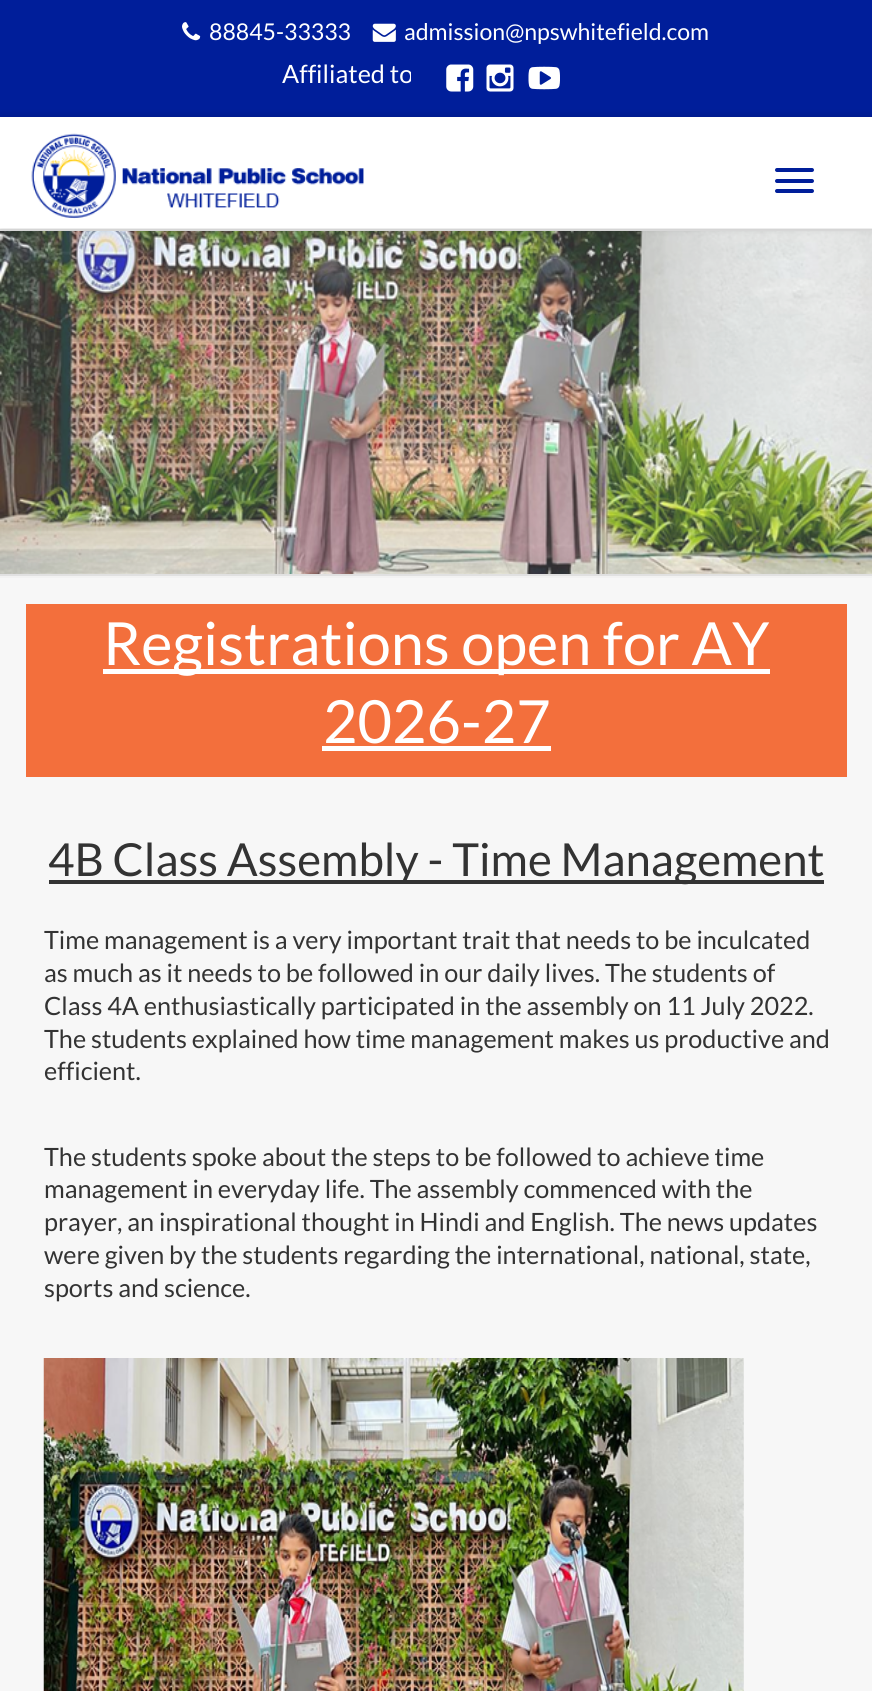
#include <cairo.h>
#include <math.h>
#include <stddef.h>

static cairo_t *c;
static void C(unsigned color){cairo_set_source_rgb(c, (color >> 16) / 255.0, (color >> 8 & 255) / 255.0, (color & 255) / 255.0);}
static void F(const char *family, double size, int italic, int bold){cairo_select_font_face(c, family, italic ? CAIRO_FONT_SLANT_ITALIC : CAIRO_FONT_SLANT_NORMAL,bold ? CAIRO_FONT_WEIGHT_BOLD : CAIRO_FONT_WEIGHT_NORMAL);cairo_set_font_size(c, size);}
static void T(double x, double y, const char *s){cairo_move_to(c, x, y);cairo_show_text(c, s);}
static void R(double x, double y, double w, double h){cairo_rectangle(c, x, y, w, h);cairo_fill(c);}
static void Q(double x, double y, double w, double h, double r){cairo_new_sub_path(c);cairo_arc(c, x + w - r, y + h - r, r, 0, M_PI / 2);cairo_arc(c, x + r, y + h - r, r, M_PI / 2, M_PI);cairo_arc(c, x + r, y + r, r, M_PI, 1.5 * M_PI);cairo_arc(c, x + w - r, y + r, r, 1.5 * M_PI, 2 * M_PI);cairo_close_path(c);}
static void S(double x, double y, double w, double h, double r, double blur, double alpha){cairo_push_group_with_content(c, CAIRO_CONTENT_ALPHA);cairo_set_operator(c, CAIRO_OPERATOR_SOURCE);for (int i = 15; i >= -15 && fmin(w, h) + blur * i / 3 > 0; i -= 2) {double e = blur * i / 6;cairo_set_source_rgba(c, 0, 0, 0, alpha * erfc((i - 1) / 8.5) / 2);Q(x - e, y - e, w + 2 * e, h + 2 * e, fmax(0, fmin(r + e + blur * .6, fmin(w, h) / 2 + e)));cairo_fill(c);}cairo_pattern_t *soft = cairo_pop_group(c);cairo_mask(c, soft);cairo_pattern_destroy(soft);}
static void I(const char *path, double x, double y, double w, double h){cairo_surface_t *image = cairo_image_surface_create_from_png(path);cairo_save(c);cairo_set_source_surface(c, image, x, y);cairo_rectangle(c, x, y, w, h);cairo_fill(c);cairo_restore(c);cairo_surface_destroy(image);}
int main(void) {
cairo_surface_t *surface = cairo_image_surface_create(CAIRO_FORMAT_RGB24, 872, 1691);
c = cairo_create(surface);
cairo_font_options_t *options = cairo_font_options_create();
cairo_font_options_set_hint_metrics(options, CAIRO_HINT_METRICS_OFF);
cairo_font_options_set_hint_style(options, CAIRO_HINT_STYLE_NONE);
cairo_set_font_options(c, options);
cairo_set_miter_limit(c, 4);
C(0xffffff);
cairo_paint(c);
C(0x001e9a);
R(0,0,872,117);
I("1.png",182,22,19,19);
F("Lato",23.1,0,0);
C(0xffffff);
T(209,40,"88845-33333");
I("2.png",372,23,24,19);
T(404,40,"admission@npswhitefield.com");
cairo_save(c);
cairo_rectangle(c,67,58,344,33);
cairo_clip(c);
F("Lato",25.2,0,0);
T(282,83,"Affiliated to");
cairo_restore(c);
I("3.png",446,64,28,28);
I("4.png",486,64,28,28);
I("5.png",528,66,32,24);
I("7.png",0,231,872,343);
C(0xe1e1e1);
R(0,229,872,2);
C(0x000000);
S(0,117,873,111,0,4.5,.15);
C(0xffffff);
R(0,117,872,111);
I("6.png",31,133,333,86);
C(0x001e9a);
Q(775,168,39,4,2);
cairo_fill(c);
Q(775,179,39,4,2);
cairo_fill(c);
Q(775,189,39,4,2);
cairo_fill(c);
C(0xe1e1e1);
R(0,574,872,2);
C(0xf7f7f7);
R(0,578,872,1113);
C(0xf2f2f2);
R(0,576,872,2);
C(0xf36f3c);
R(26,604,821,173);
C(0xffffff);
R(103,669,667,5);
F("Lato",59.5,0,0);
T(103,665,"Registrations open for AY");
T(323,743,"2026-27");
R(322,746,229,5);
C(0x333333);
R(49,880,775,4);
F("Lato",45.5,0,0);
T(48,876,"4B Class Assembly - Time Management");
F("Lato",25.2,0,0);
T(44,949,"Time management is a very important trait that needs to be inculcated");
T(44,982,"as much as it needs to be followed in our daily lives. The students of");
T(44,1015,"Class 4A enthusiastically participated in the assembly on 11 July 2022.");
T(44,1048,"The students explained how time management makes us productive and");
T(44,1080,"efficient.");
T(44,1166,"The students spoke about the steps to be followed to achieve time");
T(44,1198,"management in everyday life. The assembly commenced with the");
T(44,1231,"prayer, an inspirational thought in Hindi and English. The news updates");
T(44,1264,"were given by the students regarding the international, national, state,");
T(44,1297,"sports and science.");
I("8.png",43,1358,701,333);
cairo_surface_write_to_png(surface, "o.png");
cairo_font_options_destroy(options);
cairo_destroy(c);
cairo_surface_destroy(surface);
return 0;
}
